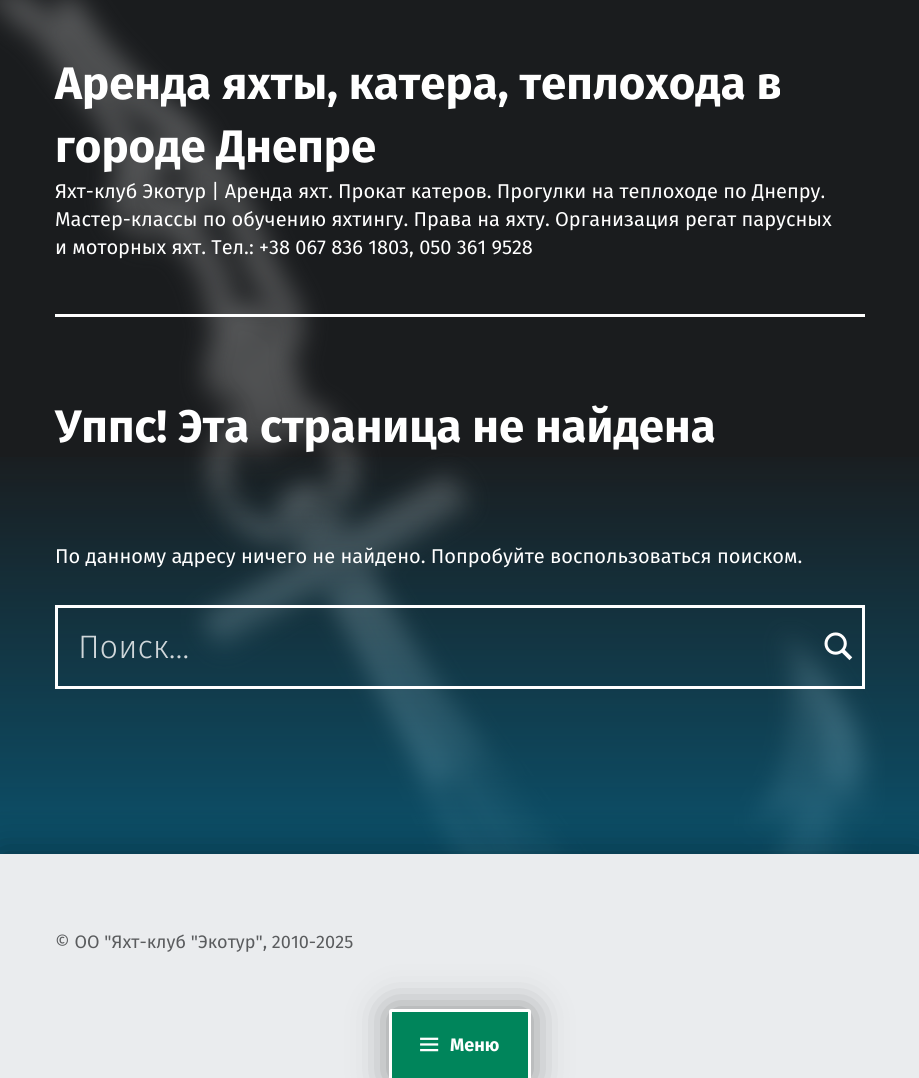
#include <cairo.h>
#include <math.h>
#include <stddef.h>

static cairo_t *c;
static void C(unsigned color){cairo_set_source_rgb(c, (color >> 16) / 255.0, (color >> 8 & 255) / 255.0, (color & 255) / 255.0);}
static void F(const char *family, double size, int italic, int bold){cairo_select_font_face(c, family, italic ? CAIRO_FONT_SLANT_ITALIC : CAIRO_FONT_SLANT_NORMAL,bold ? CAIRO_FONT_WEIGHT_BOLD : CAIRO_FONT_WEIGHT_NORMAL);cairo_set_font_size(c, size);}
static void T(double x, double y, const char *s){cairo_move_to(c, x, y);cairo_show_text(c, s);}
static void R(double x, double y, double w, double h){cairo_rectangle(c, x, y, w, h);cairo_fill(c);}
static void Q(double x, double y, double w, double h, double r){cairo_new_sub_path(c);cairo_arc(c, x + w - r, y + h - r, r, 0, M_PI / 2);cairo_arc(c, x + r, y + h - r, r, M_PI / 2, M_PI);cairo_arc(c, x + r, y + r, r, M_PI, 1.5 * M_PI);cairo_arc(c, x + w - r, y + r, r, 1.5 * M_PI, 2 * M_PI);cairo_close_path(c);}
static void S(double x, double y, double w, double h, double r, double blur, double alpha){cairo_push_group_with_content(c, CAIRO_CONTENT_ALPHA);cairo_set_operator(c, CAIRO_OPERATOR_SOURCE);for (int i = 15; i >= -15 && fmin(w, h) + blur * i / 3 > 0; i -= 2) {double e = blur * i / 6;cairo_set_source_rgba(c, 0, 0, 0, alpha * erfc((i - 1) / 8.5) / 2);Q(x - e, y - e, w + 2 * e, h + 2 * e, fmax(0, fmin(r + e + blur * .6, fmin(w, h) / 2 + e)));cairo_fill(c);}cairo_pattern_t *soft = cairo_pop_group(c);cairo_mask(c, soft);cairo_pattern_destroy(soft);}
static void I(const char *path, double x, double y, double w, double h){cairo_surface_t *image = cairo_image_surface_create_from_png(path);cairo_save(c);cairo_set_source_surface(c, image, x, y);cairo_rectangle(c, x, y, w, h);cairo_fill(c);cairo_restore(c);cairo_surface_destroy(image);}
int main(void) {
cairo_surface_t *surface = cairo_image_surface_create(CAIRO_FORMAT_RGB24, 919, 1078);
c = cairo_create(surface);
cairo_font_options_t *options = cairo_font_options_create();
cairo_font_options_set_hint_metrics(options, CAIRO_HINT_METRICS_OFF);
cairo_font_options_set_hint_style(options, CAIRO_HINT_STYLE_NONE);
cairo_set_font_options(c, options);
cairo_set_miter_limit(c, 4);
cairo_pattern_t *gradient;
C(0x1a1c1e);
cairo_paint(c);
I("1.png",0,0,885,854);
gradient = cairo_pattern_create_linear(460,441,460,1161);
cairo_pattern_add_color_stop_rgba(gradient,0,0,0.467,0.639,0);
cairo_pattern_add_color_stop_rgba(gradient,1,0,0.467,0.639,1);
cairo_set_source(c,gradient);
cairo_pattern_destroy(gradient);
R(0,457,919,397);
F("Fira Sans",45.6,0,1);
C(0xffffff);
T(55,99,"Аренда яхты, катера, теплохода в");
T(55,162,"городе Днепре");
F("Fira Sans",20,0,0);
T(55,198,"Яхт-клуб Экотур | Аренда яхт. Прокат катеров. Прогулки на теплоходе по Днепру.");
T(55,226,"Мастер-классы по обучению яхтингу. Права на яхту. Организация регат парусных");
T(55,254,"и моторных яхт. Тел.: +38 067 836 1803, 050 361 9528");
C(0x000000);
S(0,854,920,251,0,20,.4);
C(0xeaecee);
R(0,854,919,224);
C(0x000000);
S(389,1009,142,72,2.5,18,.4);
C(0x00855b);
Q(390.5,1010.5,139,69,1);
cairo_fill_preserve(c);
C(0xffffff);
cairo_set_line_width(c,3);
cairo_stroke(c);
I("2.png",420,1037,19,15);
F("Fira Sans",18.1,0,1);
T(450,1051,"Меню");
R(55,314,810,3);
F("Fira Sans",45.6,0,1);
T(55,442,"Уппс! Эта страница не найдена");
F("Fira Sans",20,0,0);
T(55,563,"По данному адресу ничего не найдено. Попробуйте воспользоваться поиском.");
cairo_rectangle(c,56.5,606.5,807,81);
cairo_stroke(c);
F("Fira Sans Light",32.5,0,0);
C(0xd0d7da);
T(78,658,"Поиск…");
I("3.png",824,632,29,29);
F("Fira Sans",18.1,0,0);
C(0x5a5c5e);
T(55,948,"© ОО \"Яхт-клуб \"Экотур\", 2010-2025");
cairo_surface_write_to_png(surface, "o.png");
cairo_font_options_destroy(options);
cairo_destroy(c);
cairo_surface_destroy(surface);
return 0;
}
